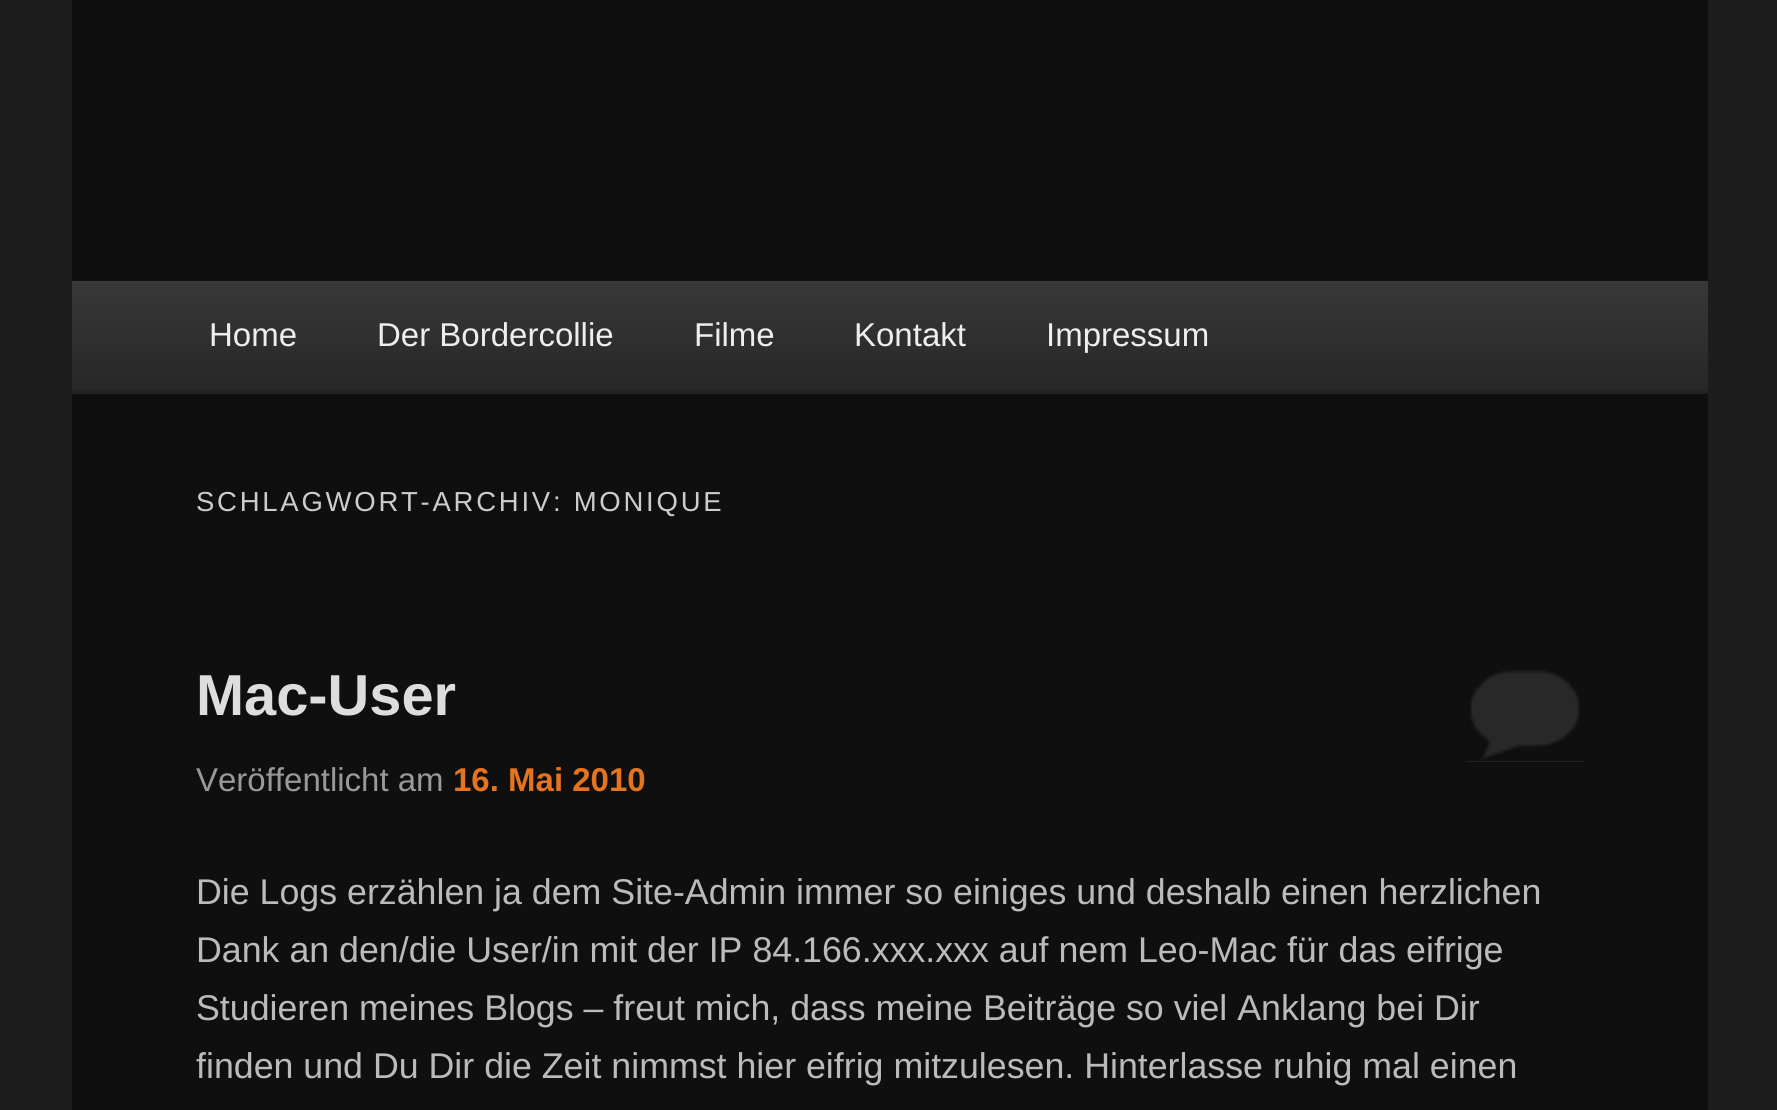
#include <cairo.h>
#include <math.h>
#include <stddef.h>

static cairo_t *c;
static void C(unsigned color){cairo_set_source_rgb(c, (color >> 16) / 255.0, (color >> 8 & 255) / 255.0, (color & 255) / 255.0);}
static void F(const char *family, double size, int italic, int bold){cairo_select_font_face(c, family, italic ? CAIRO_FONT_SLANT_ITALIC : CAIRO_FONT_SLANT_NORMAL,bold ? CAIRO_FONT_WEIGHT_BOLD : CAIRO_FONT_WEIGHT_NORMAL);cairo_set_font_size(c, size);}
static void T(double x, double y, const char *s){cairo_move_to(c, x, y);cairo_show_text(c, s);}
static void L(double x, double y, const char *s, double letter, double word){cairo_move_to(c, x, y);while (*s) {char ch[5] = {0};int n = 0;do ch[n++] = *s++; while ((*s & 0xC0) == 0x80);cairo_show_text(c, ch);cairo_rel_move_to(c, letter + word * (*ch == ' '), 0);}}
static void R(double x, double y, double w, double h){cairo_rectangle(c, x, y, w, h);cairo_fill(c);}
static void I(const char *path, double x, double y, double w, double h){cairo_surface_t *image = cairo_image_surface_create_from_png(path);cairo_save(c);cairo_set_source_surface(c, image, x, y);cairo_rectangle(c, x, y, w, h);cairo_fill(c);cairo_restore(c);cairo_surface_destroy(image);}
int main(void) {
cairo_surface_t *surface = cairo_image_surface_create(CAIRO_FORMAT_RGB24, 1777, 1110);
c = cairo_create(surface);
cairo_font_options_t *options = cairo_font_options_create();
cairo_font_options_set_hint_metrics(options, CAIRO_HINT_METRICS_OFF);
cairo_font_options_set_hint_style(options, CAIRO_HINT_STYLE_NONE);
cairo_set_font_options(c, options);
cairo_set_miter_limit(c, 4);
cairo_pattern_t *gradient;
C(0x1d1d1d);
cairo_paint(c);
C(0x0f0f0f);
R(72,0,1636,1110);
gradient = cairo_pattern_create_linear(890,280,890,391);
cairo_pattern_add_color_stop_rgba(gradient,0,0.22,0.22,0.22,1);
cairo_pattern_add_color_stop_rgba(gradient,1,0.153,0.153,0.153,1);
cairo_set_source(c,gradient);
cairo_pattern_destroy(gradient);
R(72,281,1636,110);
C(0x222222);
R(72,391,1636,3);
F("Liberation Sans",33,0,0);
C(0xeeeeee);
T(209,346,"Home");
T(377,346,"Der Bordercollie");
T(694,346,"Filme");
T(854,346,"Kontakt");
T(1046,346,"Impressum");
F("Liberation Sans",27.5,0,0);
C(0xcccccc);
L(196,511,"SCHLAGWORT-ARCHIV: MONIQUE",2.75,0);
F("Liberation Sans",57.75,0,1);
C(0xdddddd);
T(196,715,"Mac-User");
C(0x282828);
R(1466,667,118,95);
I("1.png",1466,663,118,99);
F("Liberation Sans",33,0,0);
C(0x999999);
T(196,791,"Veröffentlicht am");
F("Liberation Sans",33,0,1);
C(0xe4741f);
T(453,791,"16. Mai 2010");
F("Liberation Sans",35.75,0,0);
C(0xbbbbbb);
T(196,904,"Die Logs erzählen ja dem Site-Admin immer so einiges und deshalb einen herzlichen");
T(196,962,"Dank an den/die User/in mit der IP 84.166.xxx.xxx auf nem Leo-Mac für das eifrige");
T(196,1020,"Studieren meines Blogs – freut mich, dass meine Beiträge so viel Anklang bei Dir");
T(196,1078,"finden und Du Dir die Zeit nimmst hier eifrig mitzulesen. Hinterlasse ruhig mal einen");
cairo_surface_write_to_png(surface, "o.png");
cairo_font_options_destroy(options);
cairo_destroy(c);
cairo_surface_destroy(surface);
return 0;
}
